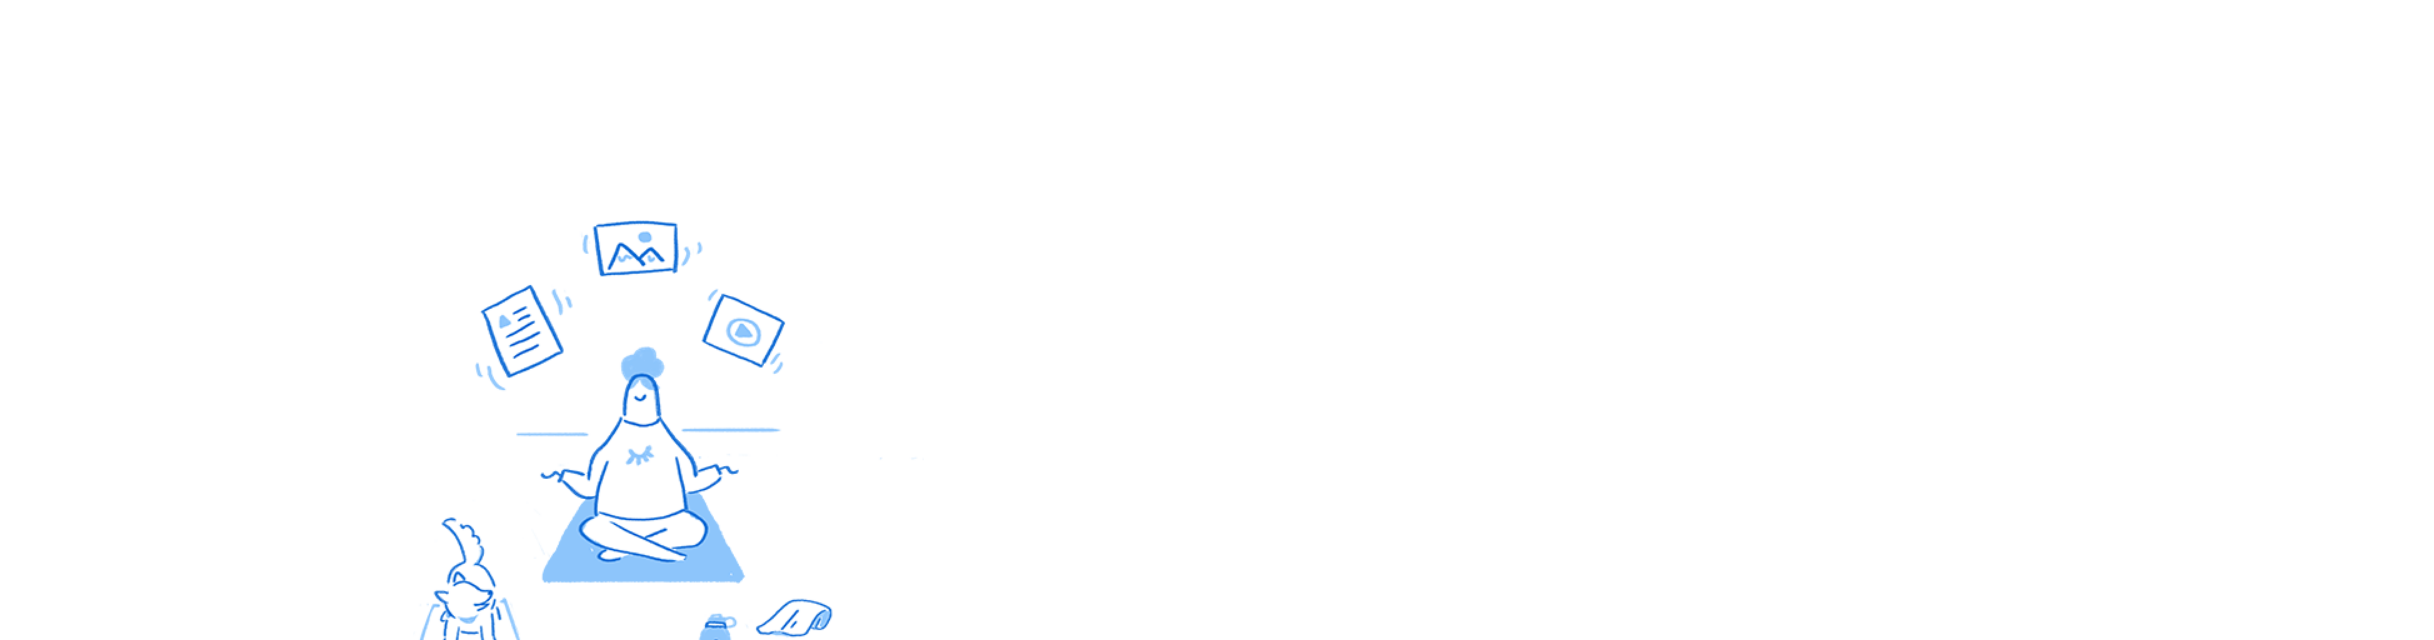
#include <cairo.h>
#include <math.h>
#include <stddef.h>

static cairo_t *c;
static void C(unsigned color){cairo_set_source_rgb(c, (color >> 16) / 255.0, (color >> 8 & 255) / 255.0, (color & 255) / 255.0);}
static void I(const char *path, double x, double y, double w, double h){cairo_surface_t *image = cairo_image_surface_create_from_png(path);cairo_save(c);cairo_set_source_surface(c, image, x, y);cairo_rectangle(c, x, y, w, h);cairo_fill(c);cairo_restore(c);cairo_surface_destroy(image);}
int main(void) {
cairo_surface_t *surface = cairo_image_surface_create(CAIRO_FORMAT_RGB24, 2434, 640);
c = cairo_create(surface);
cairo_font_options_t *options = cairo_font_options_create();
cairo_font_options_set_hint_metrics(options, CAIRO_HINT_METRICS_OFF);
cairo_font_options_set_hint_style(options, CAIRO_HINT_STYLE_NONE);
cairo_set_font_options(c, options);
cairo_set_miter_limit(c, 4);
C(0xffffff);
cairo_paint(c);
I("1.png",413,220,511,420);
cairo_surface_write_to_png(surface, "o.png");
cairo_font_options_destroy(options);
cairo_destroy(c);
cairo_surface_destroy(surface);
return 0;
}
